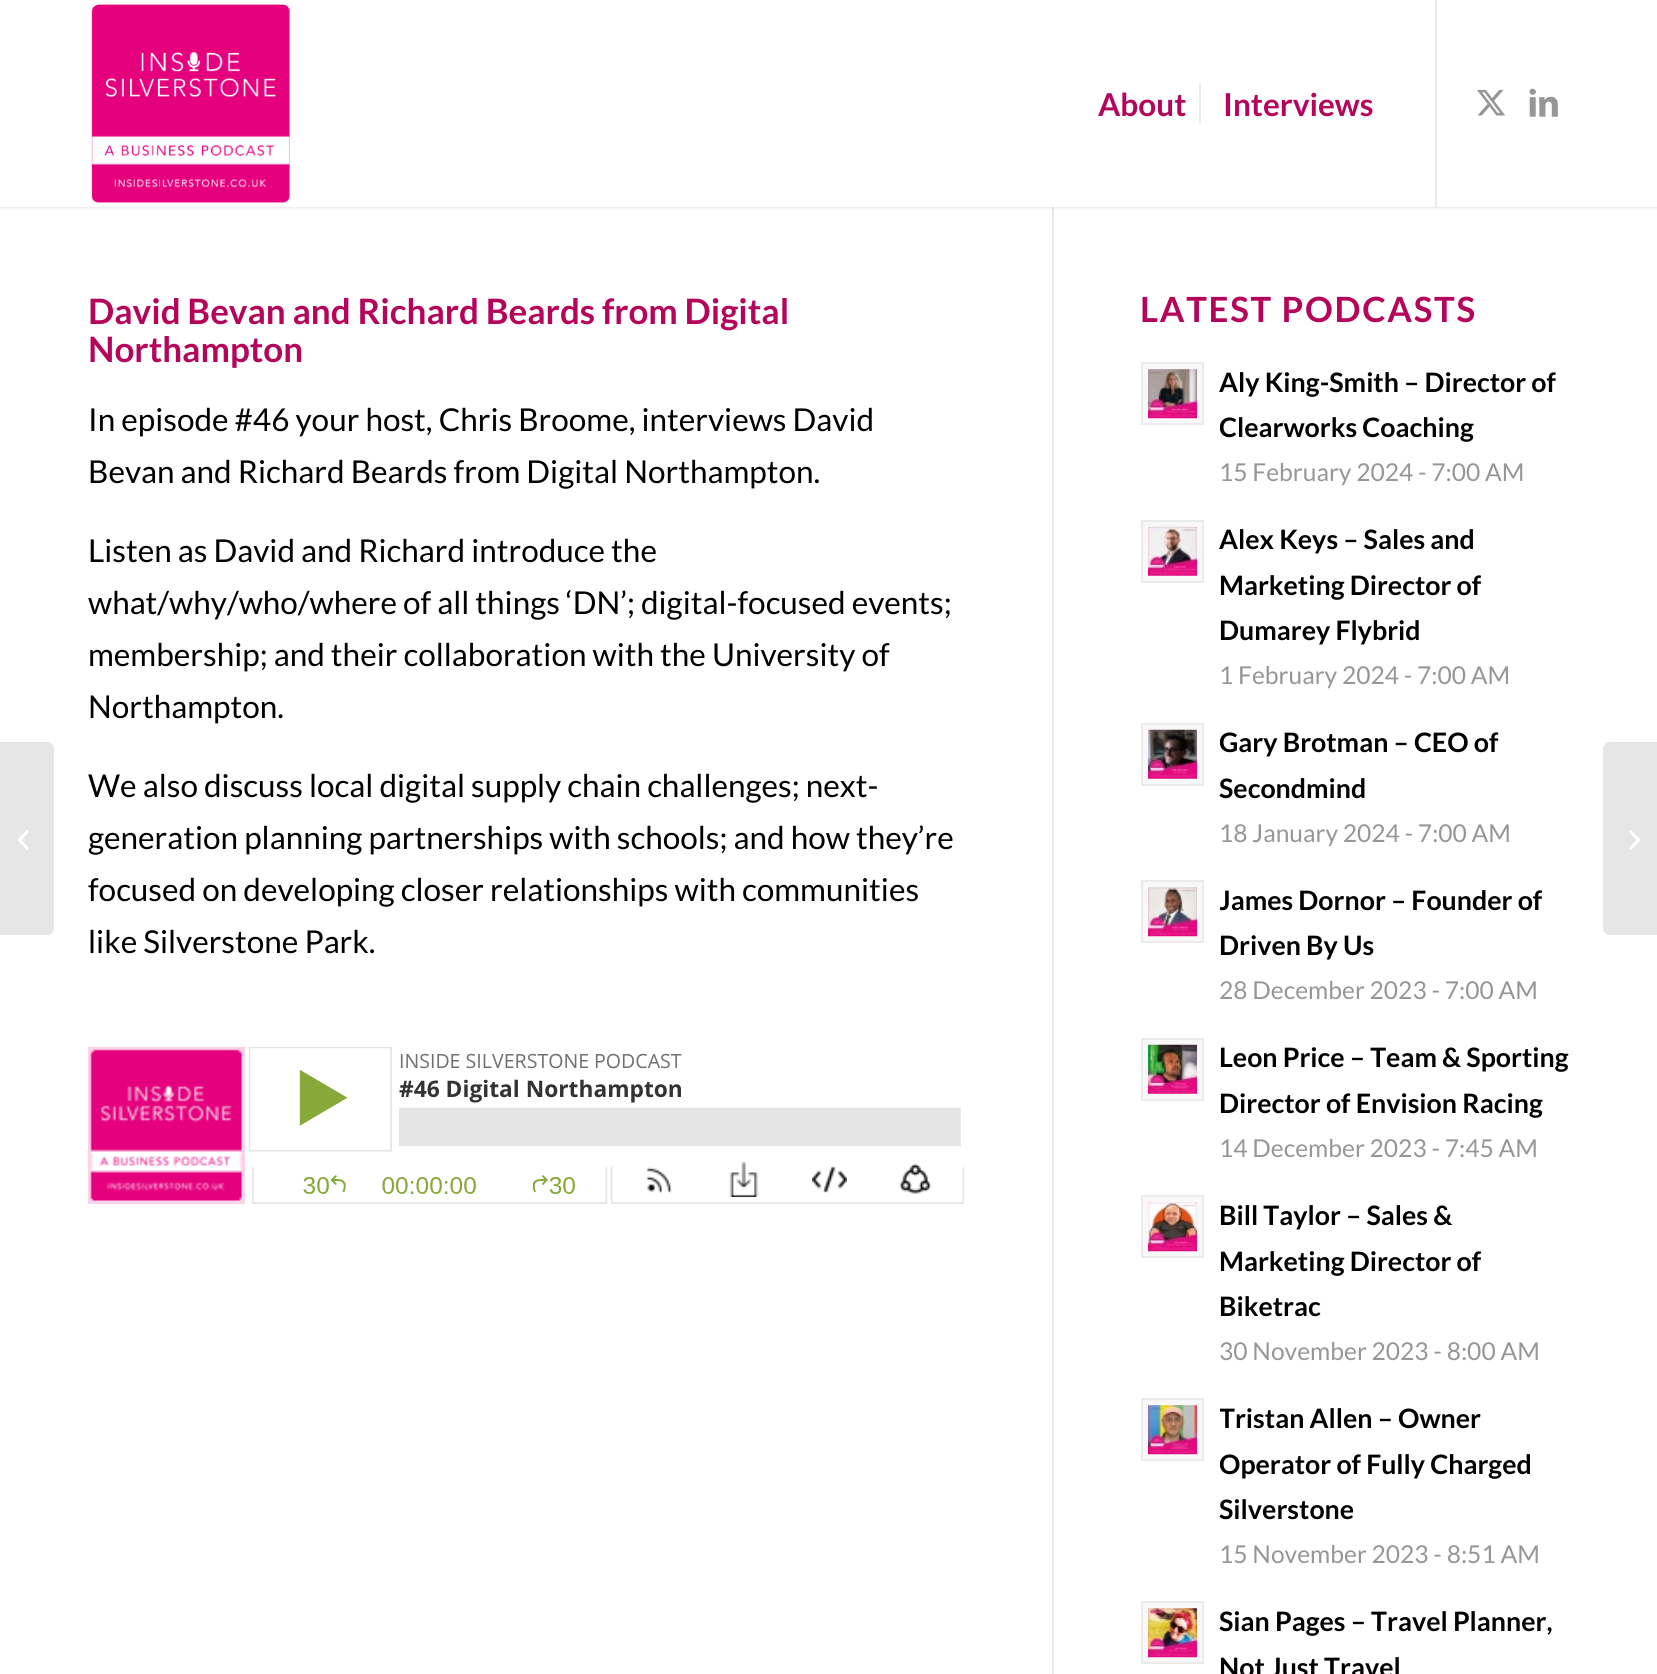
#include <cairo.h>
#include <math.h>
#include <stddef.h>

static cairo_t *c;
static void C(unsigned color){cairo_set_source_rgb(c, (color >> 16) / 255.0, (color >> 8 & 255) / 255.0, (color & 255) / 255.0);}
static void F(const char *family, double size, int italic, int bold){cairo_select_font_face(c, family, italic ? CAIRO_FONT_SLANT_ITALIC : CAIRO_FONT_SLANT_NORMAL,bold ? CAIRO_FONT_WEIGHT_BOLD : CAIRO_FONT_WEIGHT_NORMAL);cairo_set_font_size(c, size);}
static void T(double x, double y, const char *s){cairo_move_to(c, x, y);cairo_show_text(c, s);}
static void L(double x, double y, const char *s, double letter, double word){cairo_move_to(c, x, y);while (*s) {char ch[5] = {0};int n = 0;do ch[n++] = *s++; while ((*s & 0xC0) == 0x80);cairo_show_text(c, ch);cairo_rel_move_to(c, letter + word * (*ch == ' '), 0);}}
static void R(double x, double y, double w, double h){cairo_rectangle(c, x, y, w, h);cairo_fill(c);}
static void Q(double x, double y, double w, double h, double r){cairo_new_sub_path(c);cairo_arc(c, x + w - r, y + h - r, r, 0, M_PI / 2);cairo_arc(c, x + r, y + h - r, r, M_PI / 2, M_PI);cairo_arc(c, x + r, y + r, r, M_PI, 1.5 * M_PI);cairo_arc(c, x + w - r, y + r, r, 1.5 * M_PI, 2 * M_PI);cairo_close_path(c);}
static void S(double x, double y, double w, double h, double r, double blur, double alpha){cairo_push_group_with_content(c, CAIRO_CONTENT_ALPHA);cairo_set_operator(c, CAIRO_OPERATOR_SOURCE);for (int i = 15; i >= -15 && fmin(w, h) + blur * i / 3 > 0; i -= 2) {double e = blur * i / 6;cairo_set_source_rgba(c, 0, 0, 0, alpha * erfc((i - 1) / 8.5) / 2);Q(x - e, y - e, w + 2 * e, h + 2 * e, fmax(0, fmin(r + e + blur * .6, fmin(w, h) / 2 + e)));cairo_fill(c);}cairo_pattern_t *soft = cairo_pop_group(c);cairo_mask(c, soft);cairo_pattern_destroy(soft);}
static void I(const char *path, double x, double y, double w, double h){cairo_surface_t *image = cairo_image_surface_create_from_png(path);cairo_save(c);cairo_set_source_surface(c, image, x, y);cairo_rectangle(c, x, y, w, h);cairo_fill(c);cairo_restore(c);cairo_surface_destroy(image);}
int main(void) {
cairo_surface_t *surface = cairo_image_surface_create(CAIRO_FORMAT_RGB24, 1657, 1674);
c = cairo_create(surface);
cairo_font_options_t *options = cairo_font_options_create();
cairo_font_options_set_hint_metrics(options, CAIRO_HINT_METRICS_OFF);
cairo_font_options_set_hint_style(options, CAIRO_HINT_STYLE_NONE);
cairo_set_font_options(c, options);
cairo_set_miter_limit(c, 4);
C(0xffffff);
cairo_paint(c);
C(0xebebeb);
R(1052,203,2,1471);
C(0x000000);
S(-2,-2,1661,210,0,2,.1);
C(0xffffff);
R(0,0,1657,207);
I("1.png",91,4,199,199);
C(0xebebeb);
R(1435,0,2,207);
F("Lato",31.5,0,1);
C(0xb5055a);
T(1098,116,"About");
T(1223,116,"Interviews");
C(0xebebeb);
R(1199,84,2,39);
I("2.png",1477,89,28,27);
I("3.png",1529,88,29,29);
C(0xe6e6e6);
cairo_new_path(c);
cairo_move_to(c,0,742);
cairo_line_to(c,47,742);
cairo_curve_to(c,51,742,54,745,54,749);
cairo_line_to(c,54,928);
cairo_curve_to(c,54,932,51,935,47,935);
cairo_line_to(c,0,935);
cairo_close_path(c);
cairo_fill(c);
I("4.png",18,830,10,20);
F("Lato",35,0,1);
C(0xb5055a);
T(88,324,"David Bevan and Richard Beards from Digital");
T(88,362,"Northampton");
F("Lato",31.5,0,0);
C(0x000000);
T(88,431,"In episode #46 your host, Chris Broome, interviews David");
T(88,483,"Bevan and Richard Beards from Digital Northampton.");
T(88,562,"Listen as David and Richard introduce the");
T(88,614,"what/why/who/where of all things ‘DN’; digital-focused events;");
T(88,666,"membership; and their collaboration with the University of");
T(88,718,"Northampton.");
T(88,797,"We also discuss local digital supply chain challenges; next-");
T(88,849,"generation planning partnerships with schools; and how they’re");
T(88,901,"focused on developing closer relationships with communities");
T(88,953,"like Silverstone Park.");
I("5.png",87,1046,877,158);
F("Lato",34.75,0,1);
C(0xb5055a);
L(1140,322,"LATEST PODCASTS",1.75,0);
C(0xf8f8f8);
cairo_rectangle(c,1142,363,61,61);
cairo_fill_preserve(c);
C(0xebebeb);
cairo_stroke(c);
I("6.png",1148,369,49,50);
F("Lato",26.75,0,1);
C(0x000000);
T(1219,392,"Aly King-Smith – Director of");
cairo_save(c);
cairo_rectangle(c,1220,359,350,136);
cairo_clip(c);
T(1219,437,"Clearworks Coaching");
cairo_restore(c);
F("Lato",24.6,0,0);
C(0x969696);
T(1219,481,"15 February 2024 - 7:00 AM");
C(0xf8f8f8);
cairo_rectangle(c,1142,521,61,61);
cairo_fill_preserve(c);
C(0xebebeb);
cairo_stroke(c);
I("7.png",1148,526,49,50);
F("Lato",26.75,0,1);
C(0x000000);
T(1219,549,"Alex Keys – Sales and");
T(1219,595,"Marketing Director of");
T(1219,640,"Dumarey Flybrid");
F("Lato",24.6,0,0);
C(0x969696);
T(1219,684,"1 February 2024 - 7:00 AM");
C(0xf8f8f8);
cairo_rectangle(c,1142,724,61,61);
cairo_fill_preserve(c);
C(0xebebeb);
cairo_stroke(c);
I("8.png",1148,729,49,50);
cairo_save(c);
cairo_rectangle(c,1220,719,350,137);
cairo_clip(c);
F("Lato",26.75,0,1);
C(0x000000);
T(1219,752,"Gary Brotman – CEO of");
cairo_restore(c);
F("Lato",26.75,0,1);
C(0x000000);
T(1219,798,"Secondmind");
F("Lato",24.6,0,0);
C(0x969696);
T(1219,842,"18 January 2024 - 7:00 AM");
C(0xf8f8f8);
cairo_rectangle(c,1142,881,61,61);
cairo_fill_preserve(c);
C(0xebebeb);
cairo_stroke(c);
I("9.png",1148,887,49,50);
cairo_save(c);
cairo_rectangle(c,1220,877,350,136);
cairo_clip(c);
F("Lato",26.75,0,1);
C(0x000000);
T(1219,910,"James Dornor – Founder of");
cairo_restore(c);
F("Lato",26.75,0,1);
C(0x000000);
T(1219,955,"Driven By Us");
F("Lato",24.6,0,0);
C(0x969696);
T(1219,999,"28 December 2023 - 7:00 AM");
C(0xf8f8f8);
cairo_rectangle(c,1142,1039,61,61);
cairo_fill_preserve(c);
C(0xebebeb);
cairo_stroke(c);
I("10.png",1148,1044,49,50);
F("Lato",26.75,0,1);
C(0x000000);
T(1219,1067,"Leon Price – Team & Sporting");
T(1219,1113,"Director of Envision Racing");
F("Lato",24.6,0,0);
C(0x969696);
T(1219,1157,"14 December 2023 - 7:45 AM");
C(0xf8f8f8);
cairo_rectangle(c,1142,1196,61,61);
cairo_fill_preserve(c);
C(0xebebeb);
cairo_stroke(c);
I("11.png",1148,1202,49,50);
F("Lato",26.75,0,1);
C(0x000000);
T(1219,1225,"Bill Taylor – Sales &");
T(1219,1271,"Marketing Director of");
T(1219,1316,"Biketrac");
F("Lato",24.6,0,0);
C(0x969696);
T(1219,1360,"30 November 2023 - 8:00 AM");
C(0xf8f8f8);
cairo_rectangle(c,1142,1399,61,61);
cairo_fill_preserve(c);
C(0xebebeb);
cairo_stroke(c);
I("12.png",1148,1405,49,50);
cairo_save(c);
cairo_rectangle(c,1220,1395,350,182);
cairo_clip(c);
F("Lato",26.75,0,1);
C(0x000000);
T(1219,1428,"Tristan Allen – Owner");
cairo_restore(c);
F("Lato",26.75,0,1);
C(0x000000);
T(1219,1474,"Operator of Fully Charged");
T(1219,1519,"Silverstone");
F("Lato",24.6,0,0);
C(0x969696);
T(1219,1563,"15 November 2023 - 8:51 AM");
C(0xf8f8f8);
cairo_rectangle(c,1142,1602,61,61);
cairo_fill_preserve(c);
C(0xebebeb);
cairo_stroke(c);
I("13.png",1148,1608,49,50);
F("Lato",26.75,0,1);
C(0x000000);
T(1219,1631,"Sian Pages – Travel Planner,");
T(1219,1677,"Not Just Travel");
C(0xe6e6e6);
cairo_new_path(c);
cairo_move_to(c,1610,742);
cairo_line_to(c,1657,742);
cairo_line_to(c,1657,935);
cairo_line_to(c,1610,935);
cairo_curve_to(c,1606,935,1603,932,1603,928);
cairo_line_to(c,1603,749);
cairo_curve_to(c,1603,745,1606,742,1610,742);
cairo_close_path(c);
cairo_fill(c);
I("14.png",1629,830,11,20);
cairo_surface_write_to_png(surface, "o.png");
cairo_font_options_destroy(options);
cairo_destroy(c);
cairo_surface_destroy(surface);
return 0;
}
